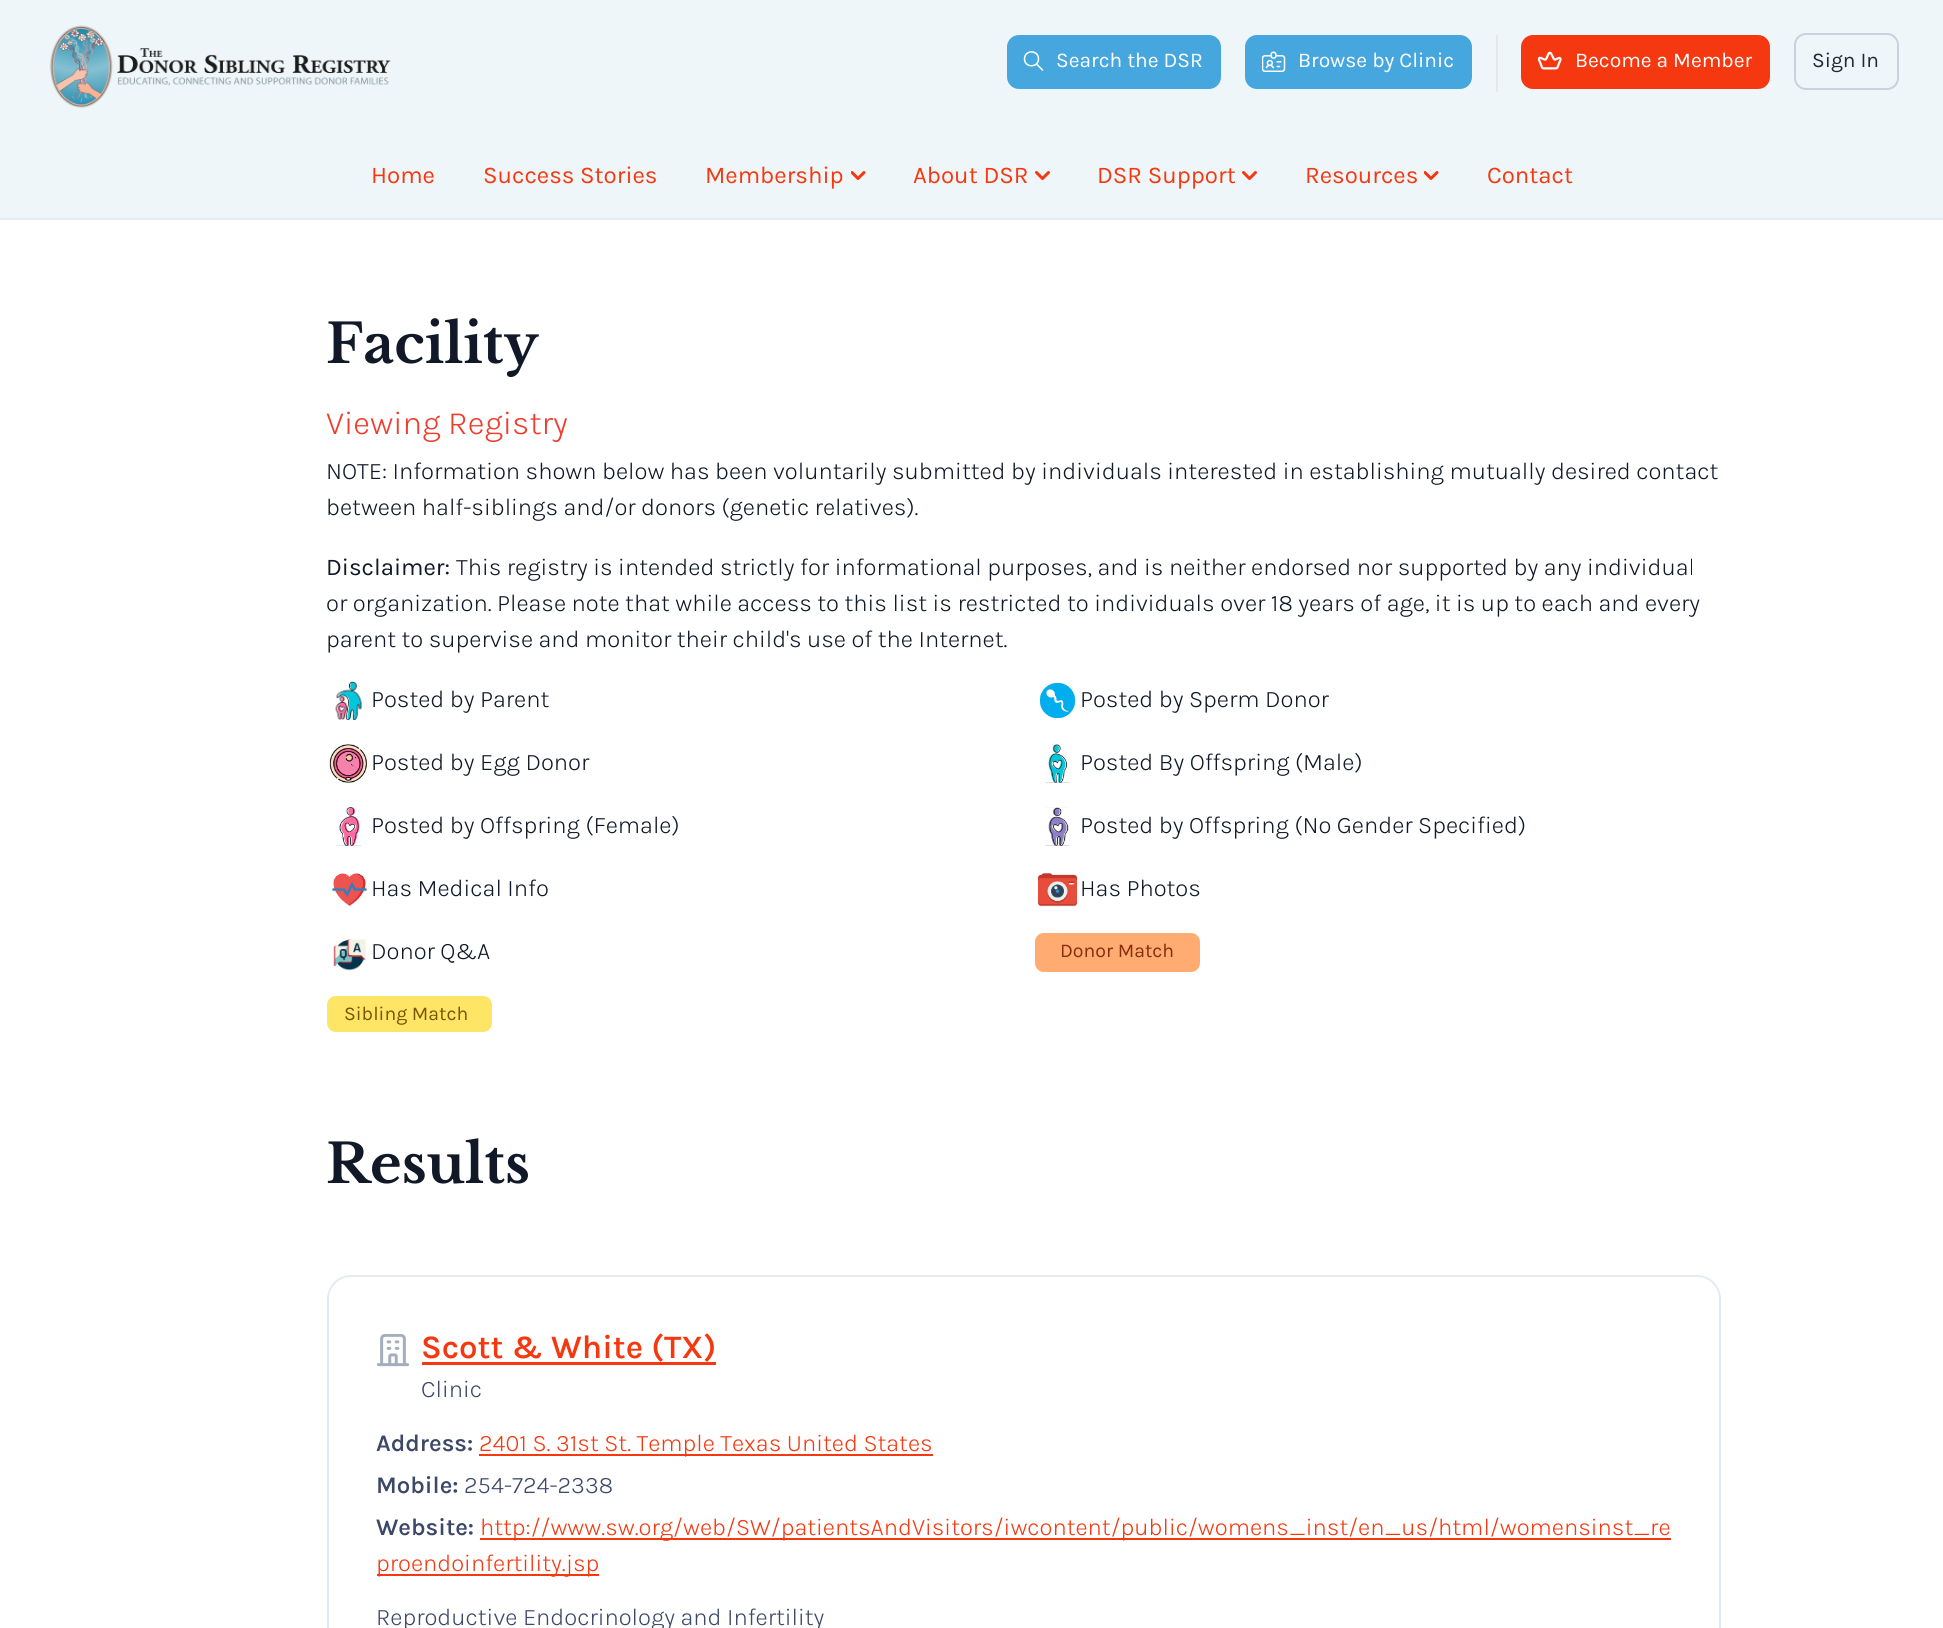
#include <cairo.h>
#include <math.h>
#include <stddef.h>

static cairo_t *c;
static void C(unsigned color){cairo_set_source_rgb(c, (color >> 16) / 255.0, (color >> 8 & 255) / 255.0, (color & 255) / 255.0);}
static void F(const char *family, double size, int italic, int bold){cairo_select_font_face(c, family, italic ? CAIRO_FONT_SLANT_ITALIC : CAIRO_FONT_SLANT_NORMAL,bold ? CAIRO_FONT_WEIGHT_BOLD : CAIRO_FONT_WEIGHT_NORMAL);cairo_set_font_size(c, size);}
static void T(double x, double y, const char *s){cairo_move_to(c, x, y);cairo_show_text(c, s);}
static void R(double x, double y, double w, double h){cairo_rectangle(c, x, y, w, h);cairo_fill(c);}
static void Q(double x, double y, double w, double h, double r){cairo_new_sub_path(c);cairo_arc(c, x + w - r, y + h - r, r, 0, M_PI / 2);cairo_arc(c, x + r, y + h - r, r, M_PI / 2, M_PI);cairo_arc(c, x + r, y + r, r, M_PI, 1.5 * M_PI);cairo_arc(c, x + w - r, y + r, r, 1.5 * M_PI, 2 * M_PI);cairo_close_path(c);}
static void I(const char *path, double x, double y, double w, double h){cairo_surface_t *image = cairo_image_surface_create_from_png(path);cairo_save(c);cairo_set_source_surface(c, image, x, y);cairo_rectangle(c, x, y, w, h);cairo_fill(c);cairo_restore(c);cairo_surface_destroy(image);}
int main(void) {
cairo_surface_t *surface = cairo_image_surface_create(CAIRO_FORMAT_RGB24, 1943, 1628);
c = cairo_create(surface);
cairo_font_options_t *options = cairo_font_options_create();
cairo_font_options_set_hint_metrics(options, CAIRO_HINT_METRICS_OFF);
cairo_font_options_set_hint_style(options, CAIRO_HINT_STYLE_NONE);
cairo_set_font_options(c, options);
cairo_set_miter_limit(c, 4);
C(0xffffff);
cairo_paint(c);
C(0xeff6fa);
R(0,0,1943,218);
I("1.png",49,25,342,83);
C(0x46a7de);
Q(1007,35,214,54,12);
cairo_fill(c);
cairo_new_path(c);
cairo_move_to(c,1042.5,70);
cairo_line_to(c,1036.5,64);
cairo_move_to(c,1038.5,59);
cairo_curve_to(c,1038.5,68,1024.5,68,1024.5,59);
cairo_curve_to(c,1024.5,49.5,1038.5,49.5,1038.5,59);
cairo_close_path(c);
C(0xffffff);
cairo_set_line_width(c,1.5);
cairo_set_line_cap(c,CAIRO_LINE_CAP_ROUND);
cairo_set_line_join(c,CAIRO_LINE_JOIN_ROUND);
cairo_stroke(c);
F("Karla",21,0,0);
T(1056,67,"Search the DSR");
C(0x46a7de);
Q(1245,35,227,54,12);
cairo_fill(c);
I("2.png",1262,51,24,21);
C(0xffffff);
T(1298,67,"Browse by Clinic");
C(0xe5e7eb);
R(1496,35,2,57);
C(0xf5380f);
Q(1521,35,249,54,12);
cairo_fill(c);
I("3.png",1538,51,24,19);
C(0xffffff);
T(1575,67,"Become a Member");
Q(1795,34,103,55,11);
C(0xc8d1dd);
cairo_set_line_width(c,2);
cairo_set_line_cap(c,CAIRO_LINE_CAP_BUTT);
cairo_set_line_join(c,CAIRO_LINE_JOIN_MITER);
cairo_stroke(c);
C(0x1f2a37);
T(1812,67,"Sign In");
C(0xe4ebf3);
R(0,218,1943,2);
F("Karla",24,0,0);
C(0xf5380f);
T(371,183,"Home");
T(483,183,"Success Stories");
T(705,183,"Membership");
cairo_save(c);
cairo_rectangle(c,851,168,15,15);
cairo_clip(c);
cairo_new_path(c);
cairo_move_to(c,852,172.5);
cairo_line_to(c,858,178.5);
cairo_line_to(c,864,172.5);
cairo_set_line_width(c,3);
cairo_set_line_cap(c,CAIRO_LINE_CAP_ROUND);
cairo_set_line_join(c,CAIRO_LINE_JOIN_ROUND);
cairo_stroke(c);
cairo_restore(c);
T(913,183,"About DSR");
cairo_new_path(c);
cairo_move_to(c,1036.5,172.5);
cairo_line_to(c,1042.5,178.5);
cairo_line_to(c,1048.5,172.5);
cairo_set_line_width(c,3);
cairo_set_line_cap(c,CAIRO_LINE_CAP_ROUND);
cairo_set_line_join(c,CAIRO_LINE_JOIN_ROUND);
cairo_stroke(c);
T(1097,183,"DSR Support");
cairo_new_path(c);
cairo_move_to(c,1243.5,172.5);
cairo_line_to(c,1249.5,178.5);
cairo_line_to(c,1255.5,172.5);
cairo_stroke(c);
T(1305,183,"Resources");
cairo_save(c);
cairo_rectangle(c,1424,168,15,15);
cairo_clip(c);
cairo_new_path(c);
cairo_move_to(c,1425,172.5);
cairo_line_to(c,1431,178.5);
cairo_line_to(c,1437,172.5);
cairo_stroke(c);
cairo_restore(c);
T(1487,183,"Contact");
F("Libre Baskerville",54,0,1);
C(0x111928);
T(326,363,"Facility");
F("Karla Light",33,0,0);
C(0xef3d2d);
T(326,434,"Viewing Registry");
F("Karla Light",24,0,0);
C(0x111928);
T(326,479,"NOTE: Information shown below has been voluntarily submitted by individuals interested in establishing mutually desired contact");
T(326,515,"between half-siblings and/or donors (genetic relatives).");
F("Karla",24,0,0);
T(326,575,"Disclaimer:");
F("Karla Light",24,0,0);
T(456,575,"This registry is intended strictly for informational purposes, and is neither endorsed nor supported by any individual");
T(326,611,"or organization. Please note that while access to this list is restricted to individuals over 18 years of age, it is up to each and every");
T(326,647,"parent to supervise and monitor their child's use of the Internet.");
I("4.png",335,681,28,39);
T(371,707,"Posted by Parent");
I("5.png",1039,682,37,37);
T(1080,707,"Posted by Sperm Donor");
I("6.png",329,744,38,39);
T(371,770,"Posted by Egg Donor");
I("7.png",1045,744,25,39);
T(1080,770,"Posted By Offspring (Male)");
I("8.png",336,807,26,39);
T(371,833,"Posted by Offspring (Female)");
I("9.png",1045,807,25,39);
T(1080,833,"Posted by Offspring (No Gender Specified)");
I("10.png",332,873,35,33);
T(371,896,"Has Medical Info");
I("11.png",1038,872,39,35);
T(1080,896,"Has Photos");
I("12.png",333,939,33,32);
T(371,959,"Donor Q&A");
C(0xffab71);
Q(1035,933,165,39,9);
cairo_fill(c);
F("Karla",19.5,0,0);
C(0x8a2c0d);
T(1060,957,"Donor Match");
C(0xfee565);
Q(327,996,165,36,9);
cairo_fill(c);
C(0x785600);
T(344,1020,"Sibling Match");
F("Libre Baskerville",54,0,1);
C(0x111928);
T(326,1183,"Results");
Q(328,1276,1392,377,23);
C(0xe4ebf3);
cairo_set_line_width(c,2);
cairo_set_line_cap(c,CAIRO_LINE_CAP_BUTT);
cairo_set_line_join(c,CAIRO_LINE_JOIN_MITER);
cairo_stroke(c);
I("13.png",377,1334,33,33);
F("Karla SemiBold",33,0,0);
C(0xf5380f);
T(421,1358,"Scott & White (TX)");
R(422,1362,294,3);
F("Karla Light",24,0,0);
C(0x3c4867);
T(421,1397,"Clinic");
F("Karla SemiBold",24,0,0);
T(376,1451,"Address:");
C(0xf5380f);
R(479,1454,454,2);
F("Karla Light",24,0,0);
T(479,1451,"2401 S. 31st St. Temple Texas United States");
F("Karla SemiBold",24,0,0);
C(0x3c4867);
T(376,1493,"Mobile:");
F("Karla Light",24,0,0);
T(464,1493,"254-724-2338");
F("Karla SemiBold",24,0,0);
T(376,1535,"Website:");
C(0xf5380f);
R(480,1538,1191,2);
F("Karla Light",24,0,0);
T(480,1535,"http://www.sw.org/web/SW/patientsAndVisitors/iwcontent/public/womens_inst/en_us/html/womensinst_re");
R(377,1574,222,2);
T(376,1571,"proendoinfertility.jsp");
C(0x3c4867);
T(376,1625,"Reproductive Endocrinology and Infertility");
cairo_surface_write_to_png(surface, "o.png");
cairo_font_options_destroy(options);
cairo_destroy(c);
cairo_surface_destroy(surface);
return 0;
}
